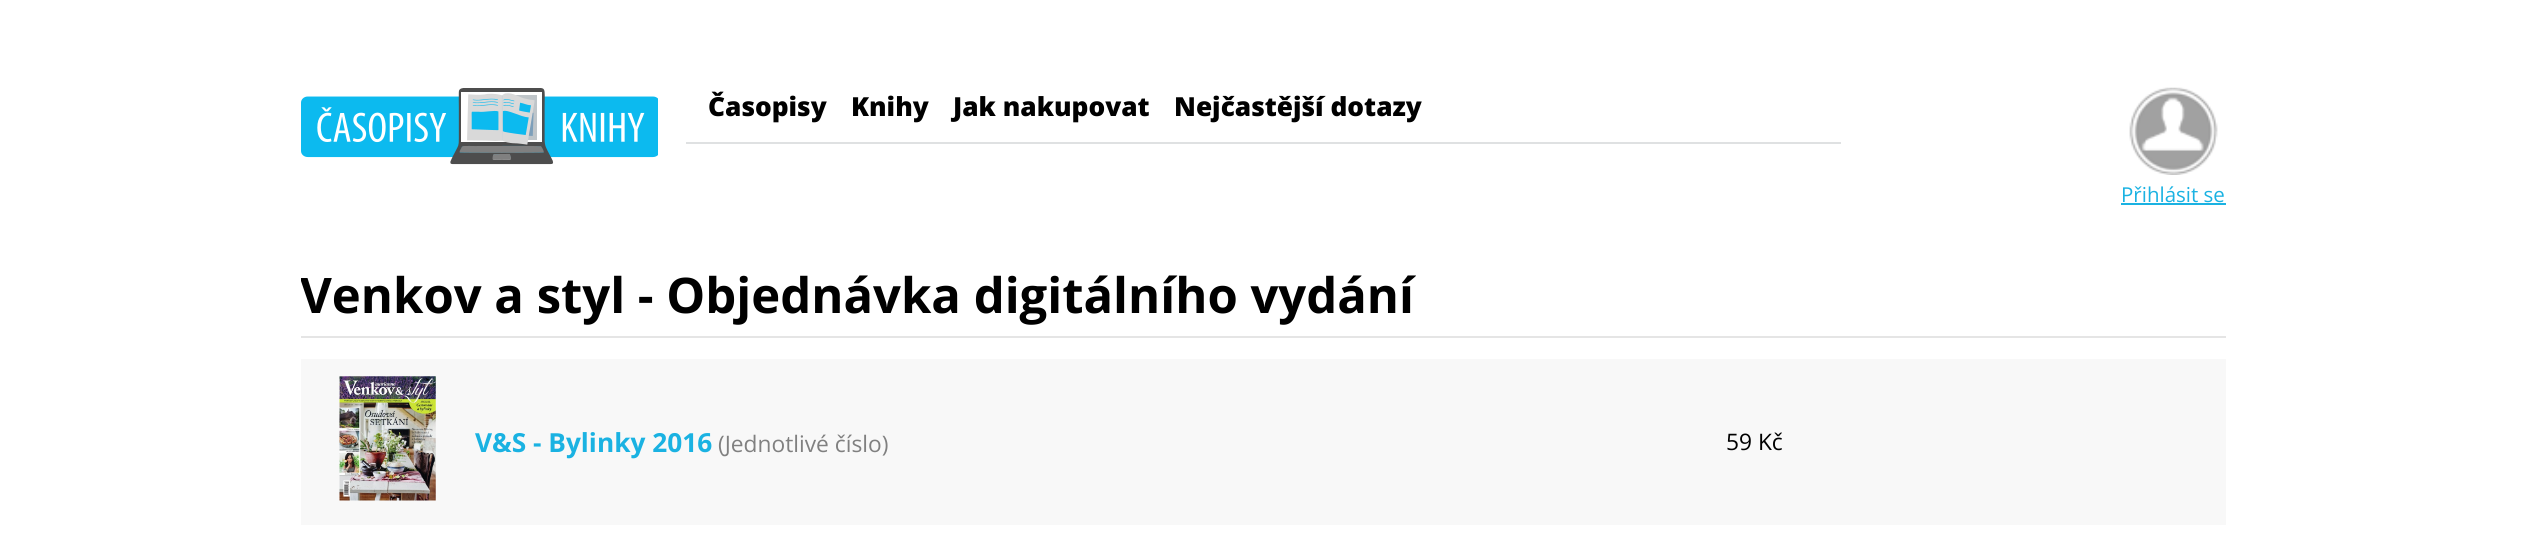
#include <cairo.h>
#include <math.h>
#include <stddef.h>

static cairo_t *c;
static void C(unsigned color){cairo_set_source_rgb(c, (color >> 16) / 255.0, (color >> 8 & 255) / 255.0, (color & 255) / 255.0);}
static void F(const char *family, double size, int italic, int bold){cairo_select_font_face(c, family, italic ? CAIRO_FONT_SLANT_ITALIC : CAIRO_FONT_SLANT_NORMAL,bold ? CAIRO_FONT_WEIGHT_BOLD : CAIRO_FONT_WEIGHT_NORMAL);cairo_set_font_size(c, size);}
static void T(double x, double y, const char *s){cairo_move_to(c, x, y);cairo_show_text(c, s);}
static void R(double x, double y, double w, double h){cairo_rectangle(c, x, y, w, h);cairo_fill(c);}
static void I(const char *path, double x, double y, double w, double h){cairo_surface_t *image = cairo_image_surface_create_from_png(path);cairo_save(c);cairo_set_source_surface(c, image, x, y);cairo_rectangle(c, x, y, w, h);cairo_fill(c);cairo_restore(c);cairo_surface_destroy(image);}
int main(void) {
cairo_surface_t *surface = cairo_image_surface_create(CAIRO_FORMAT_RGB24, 2525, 545);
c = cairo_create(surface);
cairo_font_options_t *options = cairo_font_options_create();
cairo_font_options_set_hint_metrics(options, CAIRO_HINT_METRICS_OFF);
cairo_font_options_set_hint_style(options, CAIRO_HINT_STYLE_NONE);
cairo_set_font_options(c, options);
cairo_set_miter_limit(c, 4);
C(0xffffff);
cairo_paint(c);
I("1.png",301,88,357,77);
C(0xdfe1e2);
R(686,142,1155,2);
F("Open Sans ExtraBold",26.25,0,0);
C(0x000000);
T(708,116,"Časopisy");
T(851,116,"Knihy");
T(953,116,"Jak nakupovat");
T(1174,116,"Nejčastější dotazy");
I("2.png",2129,87,89,88);
F("Open Sans",20.5,0,0);
C(0x1ab2e2);
T(2121,202,"Přihlásit se");
R(2121,203,105,2);
C(0xe5e5e5);
R(301,336,1925,2);
cairo_save(c);
cairo_rectangle(c,301,245,1925,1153);
cairo_clip(c);
F("Open Sans",49,0,1);
C(0x000000);
T(300,313,"Venkov a styl - Objednávka digitálního vydání");
cairo_restore(c);
C(0xf8f8f8);
R(301,359,1925,166);
I("3.png",339,376,97,125);
F("Open Sans",26.25,0,1);
C(0x1ab2e2);
T(475,452,"V&S - Bylinky 2016");
F("Open Sans",22.75,0,0);
C(0x808080);
T(718,452,"(Jednotlivé číslo)");
C(0x000000);
T(1726,450,"59 Kč");
cairo_surface_write_to_png(surface, "o.png");
cairo_font_options_destroy(options);
cairo_destroy(c);
cairo_surface_destroy(surface);
return 0;
}
